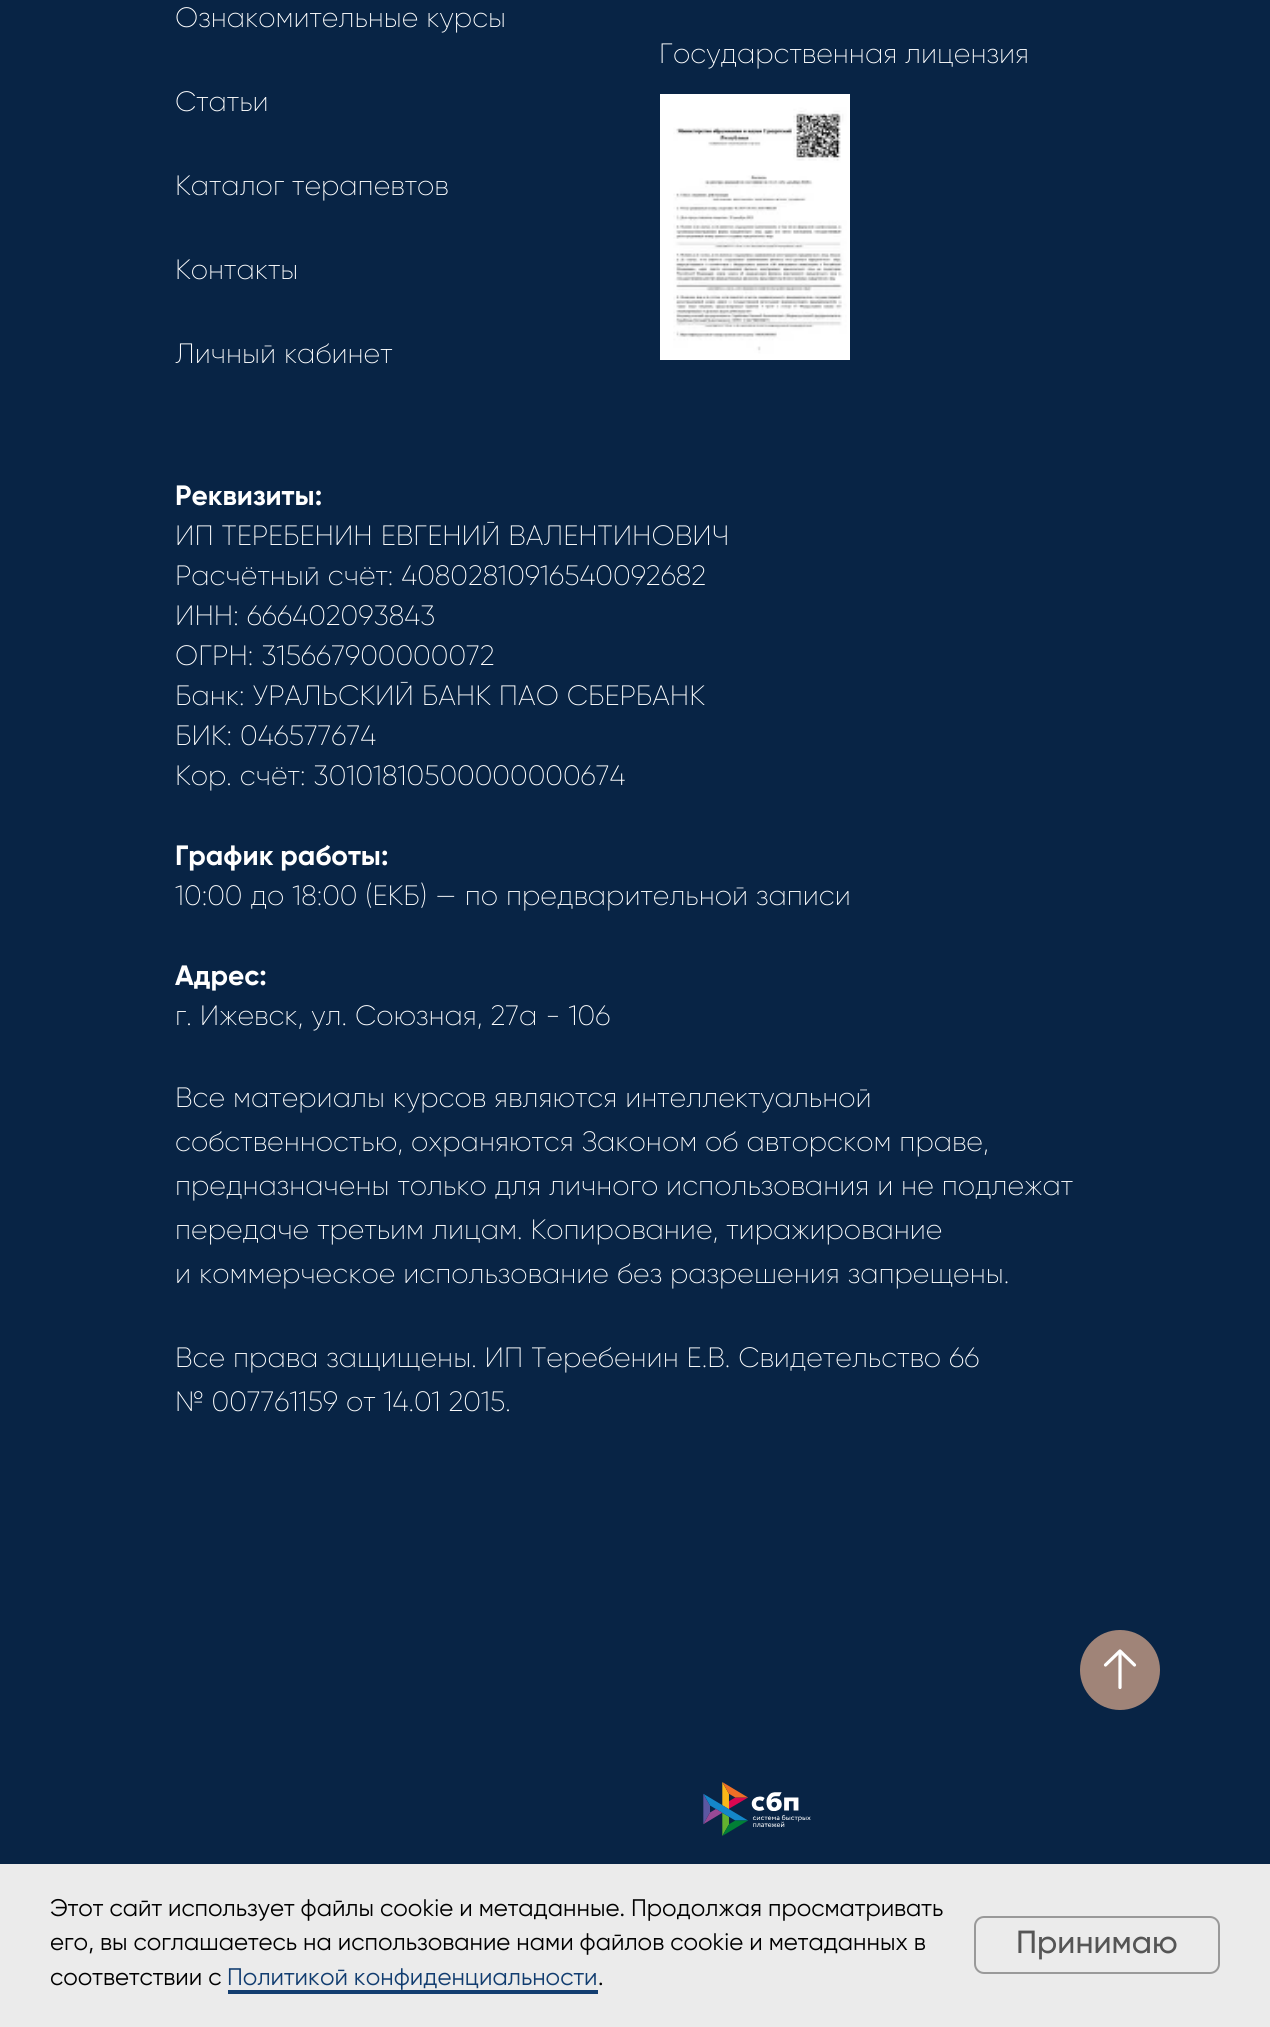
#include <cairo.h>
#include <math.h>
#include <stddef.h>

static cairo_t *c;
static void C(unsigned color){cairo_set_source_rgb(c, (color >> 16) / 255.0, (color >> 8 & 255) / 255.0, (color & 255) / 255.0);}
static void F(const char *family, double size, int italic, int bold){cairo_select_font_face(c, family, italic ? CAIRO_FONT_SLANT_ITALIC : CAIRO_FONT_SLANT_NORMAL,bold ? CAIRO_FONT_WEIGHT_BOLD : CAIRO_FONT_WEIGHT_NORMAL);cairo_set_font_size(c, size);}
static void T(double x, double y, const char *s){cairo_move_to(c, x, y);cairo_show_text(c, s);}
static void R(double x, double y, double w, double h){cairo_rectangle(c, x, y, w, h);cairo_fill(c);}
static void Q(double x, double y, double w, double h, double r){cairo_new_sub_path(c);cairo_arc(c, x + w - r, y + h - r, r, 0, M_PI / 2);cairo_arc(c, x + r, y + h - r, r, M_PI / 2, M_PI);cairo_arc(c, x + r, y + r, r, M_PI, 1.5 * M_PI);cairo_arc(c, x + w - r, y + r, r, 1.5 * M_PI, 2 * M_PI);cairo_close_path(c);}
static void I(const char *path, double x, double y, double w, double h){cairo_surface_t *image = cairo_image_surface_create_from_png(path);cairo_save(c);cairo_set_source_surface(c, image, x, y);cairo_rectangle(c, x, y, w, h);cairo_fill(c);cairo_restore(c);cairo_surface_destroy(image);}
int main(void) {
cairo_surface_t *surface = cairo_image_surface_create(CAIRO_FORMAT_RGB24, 1270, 2027);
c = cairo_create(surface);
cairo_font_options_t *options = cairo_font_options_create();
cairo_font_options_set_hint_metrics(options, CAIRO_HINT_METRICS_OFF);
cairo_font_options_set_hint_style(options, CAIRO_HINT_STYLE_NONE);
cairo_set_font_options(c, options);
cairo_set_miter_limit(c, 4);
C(0x082445);
cairo_paint(c);
F("Gilroy ExtraLight",28,0,0);
C(0xffffff);
T(175,27,"Ознакомительные курсы");
T(659,63,"Государственная лицензия");
T(175,111,"Статьи");
I("1.png",660,94,190,266);
T(175,195,"Каталог терапевтов");
T(175,279,"Контакты");
T(175,363,"Личный кабинет");
F("Gilroy",28,0,1);
T(175,505,"Реквизиты:");
F("Gilroy ExtraLight",28,0,0);
T(175,545,"ИП ТЕРЕБЕНИН ЕВГЕНИЙ ВАЛЕНТИНОВИЧ");
T(175,585,"Расчётный счёт: 40802810916540092682");
T(175,625,"ИНН: 666402093843");
T(175,665,"ОГРН: 315667900000072");
T(175,705,"Банк: УРАЛЬСКИЙ БАНК ПАО СБЕРБАНК");
T(175,745,"БИК: 046577674");
T(175,785,"Кор. счёт: 30101810500000000674");
F("Gilroy",28,0,1);
T(175,865,"График работы:");
F("Gilroy ExtraLight",28,0,0);
T(175,905,"10:00 до 18:00 (ЕКБ) — по предварительной записи");
F("Gilroy",28,0,1);
T(175,985,"Адрес:");
F("Gilroy ExtraLight",28,0,0);
T(175,1025,"г. Ижевск, ул. Союзная, 27а - 106");
T(175,1107,"Все материалы курсов являются интеллектуальной");
T(175,1151,"собственностью, охраняются Законом об авторском праве,");
T(175,1195,"предназначены только для личного использования и не подлежат");
T(175,1239,"передаче третьим лицам. Копирование, тиражирование");
T(175,1283,"и коммерческое использование без разрешения запрещены.");
T(175,1367,"Все права защищены. ИП Теребенин Е.В. Свидетельство 66");
T(175,1411,"№ 007761159 от 14.01 2015.");
C(0xa08478);
cairo_new_path(c);
cairo_arc(c,1120,1670,40,0,2 * M_PI);
cairo_fill(c);
cairo_new_path(c);
cairo_move_to(c,1105.5,1665);
cairo_line_to(c,1120,1651);
cairo_line_to(c,1134.5,1665);
C(0xffffff);
cairo_set_line_width(c,3.2);
cairo_set_line_cap(c,CAIRO_LINE_CAP_ROUND);
cairo_set_line_join(c,CAIRO_LINE_JOIN_ROUND);
cairo_stroke(c);
cairo_new_path(c);
cairo_move_to(c,1120,1652.5);
cairo_line_to(c,1120,1687.5);
cairo_set_line_join(c,CAIRO_LINE_JOIN_MITER);
cairo_stroke(c);
I("2.png",703,1782,108,54);
C(0xebebeb);
R(0,1864,1270,163);
F("Gilroy",24,0,0);
C(0x000000);
T(50,1916,"Этот сайт использует файлы cookie и метаданные. Продолжая просматривать");
T(50,1950,"его, вы соглашаетесь на использование нами файлов cookie и метаданных в");
T(50,1985,"соответствии с");
C(0x123d70);
T(227,1985,"Политикой конфиденциальности");
R(228,1990,370,4);
C(0x000000);
T(598,1985,".");
Q(975,1917,244,56,9);
C(0x999999);
cairo_set_line_width(c,2);
cairo_set_line_cap(c,CAIRO_LINE_CAP_BUTT);
cairo_stroke(c);
F("Gilroy Medium",32,0,0);
C(0x555555);
T(1016,1953,"Принимаю");
cairo_surface_write_to_png(surface, "o.png");
cairo_font_options_destroy(options);
cairo_destroy(c);
cairo_surface_destroy(surface);
return 0;
}
